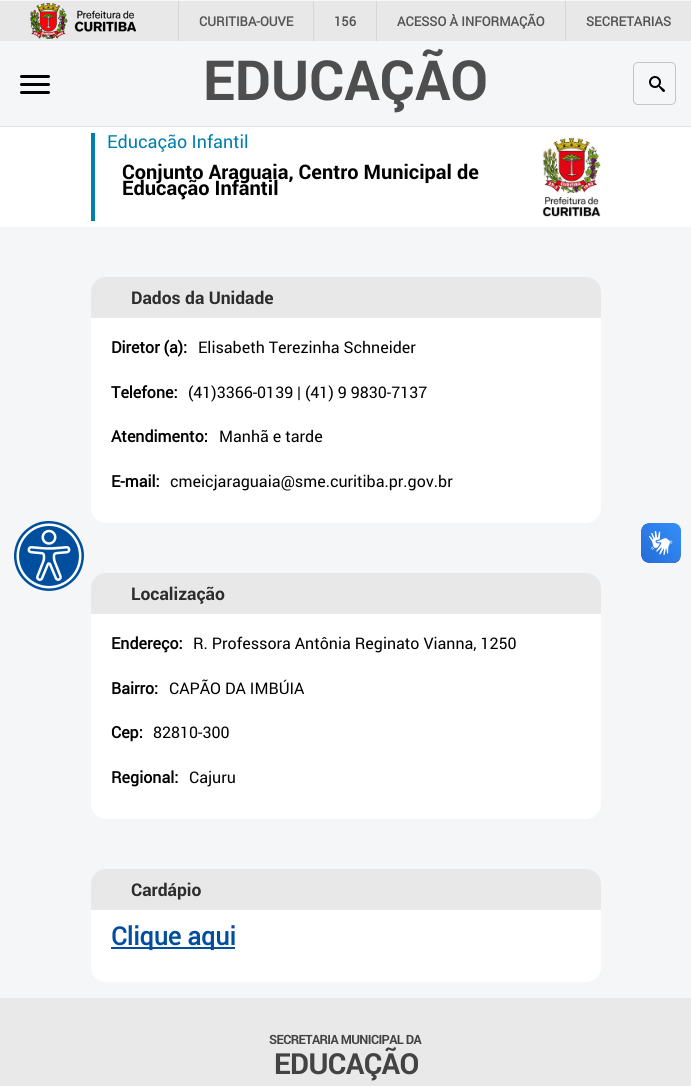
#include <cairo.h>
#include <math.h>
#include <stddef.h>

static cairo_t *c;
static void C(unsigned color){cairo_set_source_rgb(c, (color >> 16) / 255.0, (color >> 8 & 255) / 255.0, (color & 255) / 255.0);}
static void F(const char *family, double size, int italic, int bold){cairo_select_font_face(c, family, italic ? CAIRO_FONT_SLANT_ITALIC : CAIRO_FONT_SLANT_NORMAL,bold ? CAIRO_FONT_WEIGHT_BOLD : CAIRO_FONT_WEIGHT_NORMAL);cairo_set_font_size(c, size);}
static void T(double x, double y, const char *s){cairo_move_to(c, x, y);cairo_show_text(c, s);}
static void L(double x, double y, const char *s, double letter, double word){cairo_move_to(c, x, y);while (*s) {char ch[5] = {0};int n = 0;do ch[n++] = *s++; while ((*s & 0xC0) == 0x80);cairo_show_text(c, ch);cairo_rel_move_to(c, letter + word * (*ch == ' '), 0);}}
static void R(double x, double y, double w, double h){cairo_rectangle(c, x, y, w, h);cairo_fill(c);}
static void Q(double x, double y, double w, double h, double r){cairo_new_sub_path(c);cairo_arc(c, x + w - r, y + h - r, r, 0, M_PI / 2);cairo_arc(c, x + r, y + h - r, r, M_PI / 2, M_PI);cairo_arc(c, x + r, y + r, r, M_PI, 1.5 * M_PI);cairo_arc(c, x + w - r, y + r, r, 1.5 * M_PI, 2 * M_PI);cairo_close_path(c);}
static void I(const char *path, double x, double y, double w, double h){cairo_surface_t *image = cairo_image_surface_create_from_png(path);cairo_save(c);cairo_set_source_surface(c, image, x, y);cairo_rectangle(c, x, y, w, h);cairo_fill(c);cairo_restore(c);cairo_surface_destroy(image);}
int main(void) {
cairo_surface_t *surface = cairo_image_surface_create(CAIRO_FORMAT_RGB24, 691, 1086);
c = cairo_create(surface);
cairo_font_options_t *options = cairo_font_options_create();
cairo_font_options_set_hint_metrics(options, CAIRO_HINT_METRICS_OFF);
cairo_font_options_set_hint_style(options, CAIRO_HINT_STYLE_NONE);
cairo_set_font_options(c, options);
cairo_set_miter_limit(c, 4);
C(0xf4f6f7);
cairo_paint(c);
C(0xe8e8e8);
R(0,1,691,40);
I("1.png",30,3,106,36);
C(0xd6d6d6);
R(178,1,1,40);
F("Roboto",13,0,1);
C(0x555555);
T(199,26,"CURITIBA-OUVE");
C(0xd6d6d6);
R(313,1,1,40);
C(0x555555);
T(334,26,"156");
C(0xd6d6d6);
R(376,1,1,40);
C(0x555555);
T(397,26,"ACESSO À INFORMAÇÃO");
C(0xd6d6d6);
R(565,1,1,40);
C(0x555555);
T(586,26,"SECRETARIAS");
C(0xe0e0e0);
R(0,126,691,1);
C(0x000000);
Q(20,75,30,3,1.5);
cairo_fill(c);
Q(20,83,30,3,1.5);
cairo_fill(c);
Q(20,91,30,3,1.5);
cairo_fill(c);
F("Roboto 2",55.25,0,1);
C(0x4e4e4e);
T(203,100,"EDUCAÇÃO");
Q(633.5,62.5,42,42,4.5);
C(0xc3c5c6);
cairo_set_line_width(c,1);
cairo_stroke(c);
I("2.png",649,76,16,16);
C(0xffffff);
cairo_arc(c,49,556,35,0,2 * M_PI);
cairo_fill(c);
I("3.png",14,521,70,70);
R(0,127,691,100);
C(0x007eae);
R(91,133,4,88);
F("Roboto",18,0,0);
T(107,148,"Educação Infantil");
F("Roboto 2",20,0,1);
C(0x000000);
T(122,179,"Conjunto Araguaia, Centro Municipal de");
T(122,195,"Educação Infantil");
I("4.png",542,137,59,80);
C(0xffffff);
Q(91,277,510,246,15);
cairo_fill(c);
C(0xe8e8e8);
cairo_new_path(c);
cairo_move_to(c,106,277);
cairo_line_to(c,586,277);
cairo_curve_to(c,594.5,277,601,283.5,601,292);
cairo_line_to(c,601,318);
cairo_line_to(c,91,318);
cairo_line_to(c,91,292);
cairo_curve_to(c,91,283.5,97.5,277,106,277);
cairo_close_path(c);
cairo_fill(c);
F("Roboto 2",17.5,0,1);
C(0x2d2d2d);
T(131,304,"Dados da Unidade");
F("Roboto",16,0,1);
C(0x000000);
T(111,353,"Diretor (a):");
F("Roboto",16,0,0);
T(198,353,"Elisabeth Terezinha Schneider");
F("Roboto",16,0,1);
T(111,398,"Telefone:");
F("Roboto",16,0,0);
T(188,398,"(41)3366-0139 | (41) 9 9830-7137");
F("Roboto",16,0,1);
T(111,442,"Atendimento:");
F("Roboto",16,0,0);
T(219,442,"Manhã e tarde");
F("Roboto",16,0,1);
T(111,487,"E-mail:");
F("Roboto",16,0,0);
T(170,487,"cmeicjaraguaia@sme.curitiba.pr.gov.br");
C(0xffffff);
Q(91,573,510,246,15);
cairo_fill(c);
C(0xe8e8e8);
cairo_new_path(c);
cairo_move_to(c,106,573);
cairo_line_to(c,586,573);
cairo_curve_to(c,594.5,573,601,579.5,601,588);
cairo_line_to(c,601,614);
cairo_line_to(c,91,614);
cairo_line_to(c,91,588);
cairo_curve_to(c,91,579.5,97.5,573,106,573);
cairo_close_path(c);
cairo_fill(c);
F("Roboto 2",17.5,0,1);
C(0x2d2d2d);
T(131,600,"Localização");
F("Roboto",16,0,1);
C(0x000000);
T(111,649,"Endereço:");
F("Roboto",16,0,0);
T(193,649,"R. Professora Antônia Reginato Vianna, 1250");
F("Roboto",16,0,1);
T(111,694,"Bairro:");
F("Roboto",16,0,0);
T(169,694,"CAPÃO DA IMBÚIA");
F("Roboto",16,0,1);
T(111,738,"Cep:");
F("Roboto",16,0,0);
T(153,738,"82810-300");
F("Roboto",16,0,1);
T(111,783,"Regional:");
F("Roboto",16,0,0);
T(189,783,"Cajuru");
C(0xffffff);
Q(91,869,510,113,15);
cairo_fill(c);
C(0xe8e8e8);
cairo_new_path(c);
cairo_move_to(c,106,869);
cairo_line_to(c,586,869);
cairo_curve_to(c,594.5,869,601,875.5,601,884);
cairo_line_to(c,601,910);
cairo_line_to(c,91,910);
cairo_line_to(c,91,884);
cairo_curve_to(c,91,875.5,97.5,869,106,869);
cairo_close_path(c);
cairo_fill(c);
F("Roboto 2",17.5,0,1);
C(0x2d2d2d);
T(131,896,"Cardápio");
C(0x004f9f);
R(111,947,124,2);
F("Roboto",25,0,1);
T(111,945,"Clique aqui");
C(0xe9e9e9);
R(0,998,691,88);
F("Roboto 2",12.75,0,1);
C(0x434343);
L(269,1044,"SECRETARIA MUNICIPAL DA",-.6,0);
F("Roboto 2",29,0,1);
L(274,1074,"EDUCAÇÃO",-.6,0);
I("5.png",641,523,40,40);
I("6.png",641,523,40,40);
cairo_surface_write_to_png(surface, "o.png");
cairo_font_options_destroy(options);
cairo_destroy(c);
cairo_surface_destroy(surface);
return 0;
}
